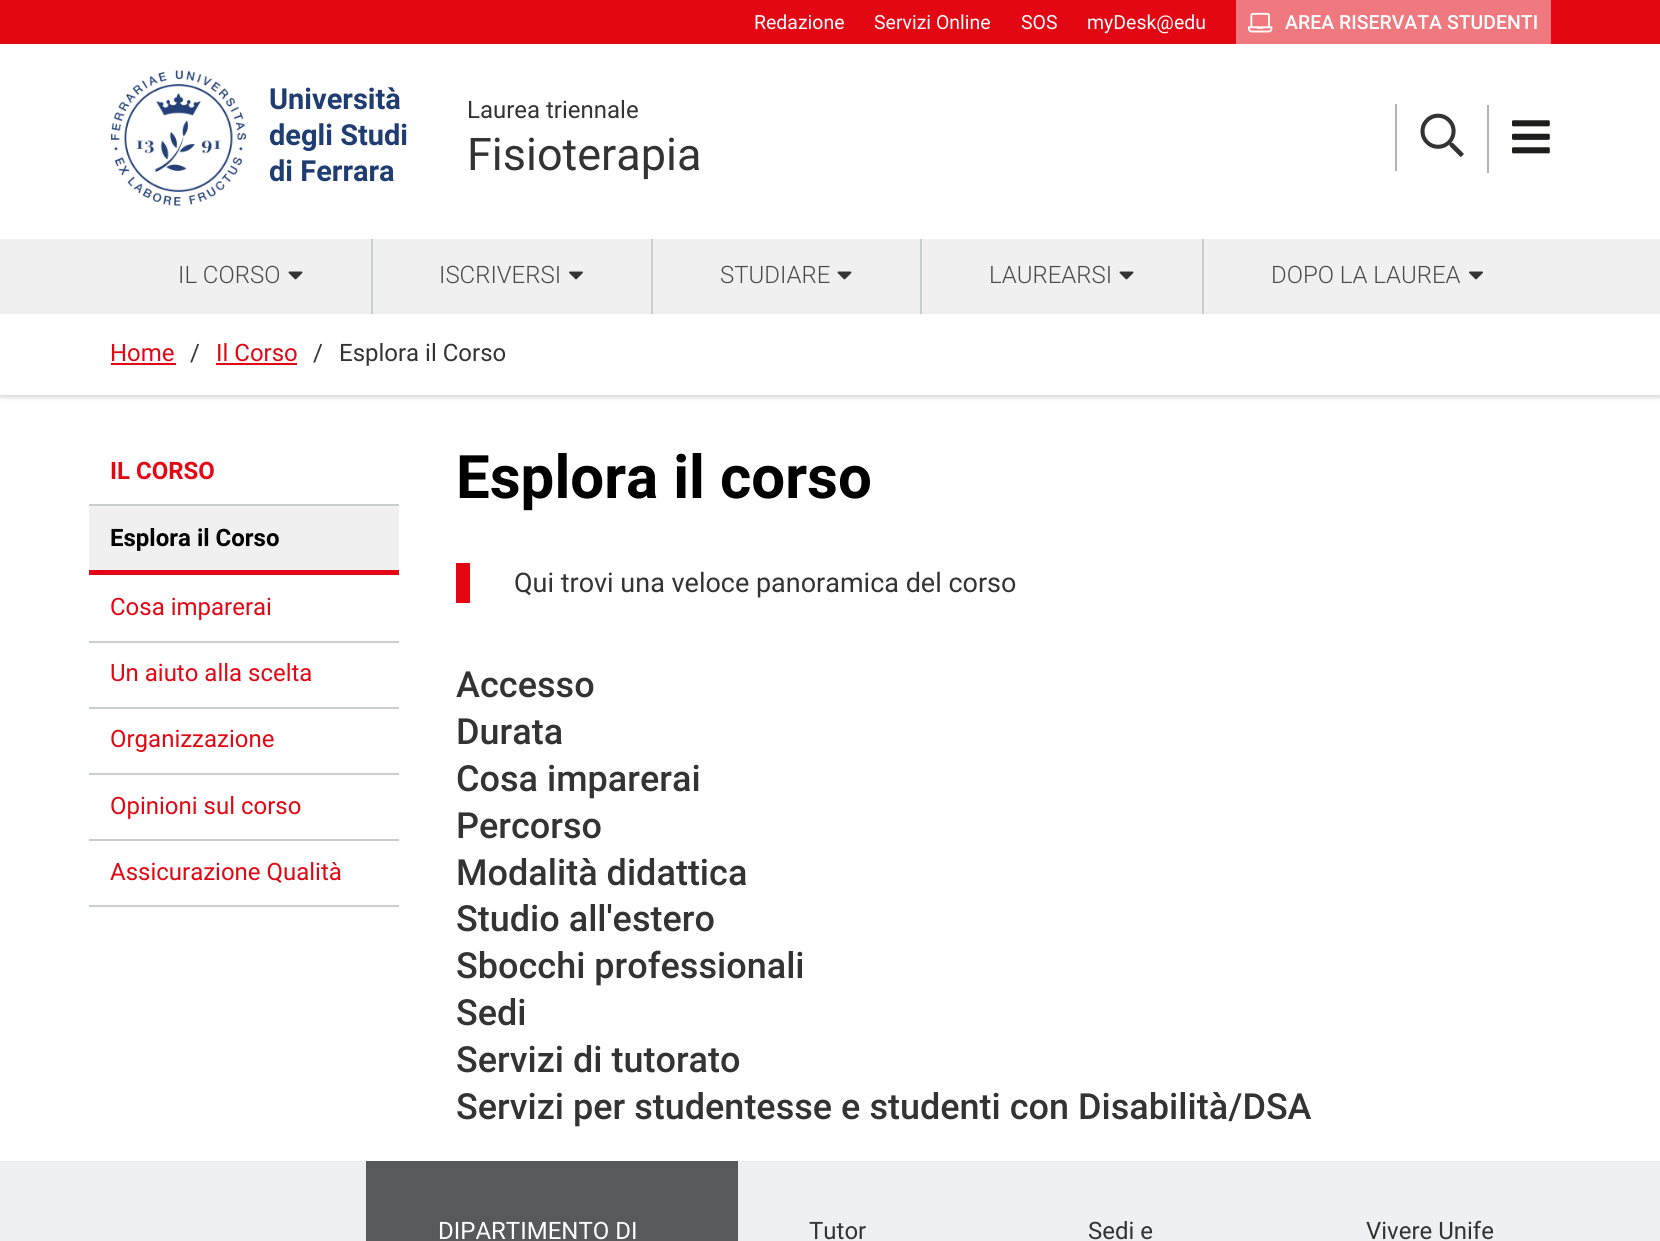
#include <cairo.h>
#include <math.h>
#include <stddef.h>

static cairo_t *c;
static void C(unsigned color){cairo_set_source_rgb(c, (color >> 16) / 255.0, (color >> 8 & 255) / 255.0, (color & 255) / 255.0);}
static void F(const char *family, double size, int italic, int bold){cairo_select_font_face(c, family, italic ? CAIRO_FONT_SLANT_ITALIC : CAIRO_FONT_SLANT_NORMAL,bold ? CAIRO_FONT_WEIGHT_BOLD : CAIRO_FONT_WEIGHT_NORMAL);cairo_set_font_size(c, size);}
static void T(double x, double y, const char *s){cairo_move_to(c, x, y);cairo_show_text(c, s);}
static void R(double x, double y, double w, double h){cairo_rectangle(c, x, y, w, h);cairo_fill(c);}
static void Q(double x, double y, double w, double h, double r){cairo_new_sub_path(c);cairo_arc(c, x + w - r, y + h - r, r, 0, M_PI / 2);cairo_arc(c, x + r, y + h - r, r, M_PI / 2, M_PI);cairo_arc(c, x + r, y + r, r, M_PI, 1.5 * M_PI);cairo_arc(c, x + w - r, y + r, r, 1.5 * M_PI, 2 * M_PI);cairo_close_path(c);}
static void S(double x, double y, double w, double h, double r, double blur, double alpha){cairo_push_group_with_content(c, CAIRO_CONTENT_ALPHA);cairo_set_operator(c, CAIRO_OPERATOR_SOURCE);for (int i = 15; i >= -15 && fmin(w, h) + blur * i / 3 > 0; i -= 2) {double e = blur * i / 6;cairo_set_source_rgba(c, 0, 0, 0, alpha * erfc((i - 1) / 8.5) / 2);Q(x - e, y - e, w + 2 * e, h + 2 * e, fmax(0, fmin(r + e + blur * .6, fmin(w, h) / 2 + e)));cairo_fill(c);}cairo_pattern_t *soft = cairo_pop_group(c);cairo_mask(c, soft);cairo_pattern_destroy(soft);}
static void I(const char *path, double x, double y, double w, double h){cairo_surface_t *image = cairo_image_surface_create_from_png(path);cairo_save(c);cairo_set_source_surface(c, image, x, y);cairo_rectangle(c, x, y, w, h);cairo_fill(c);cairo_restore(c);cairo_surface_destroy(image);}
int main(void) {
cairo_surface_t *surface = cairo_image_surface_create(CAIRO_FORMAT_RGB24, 1660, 1241);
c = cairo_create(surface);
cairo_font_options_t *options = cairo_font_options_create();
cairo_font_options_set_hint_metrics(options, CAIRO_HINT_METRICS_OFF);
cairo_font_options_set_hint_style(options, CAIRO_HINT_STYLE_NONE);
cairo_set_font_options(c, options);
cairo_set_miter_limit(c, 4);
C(0xffffff);
cairo_paint(c);
C(0xe30613);
R(0,0,1660,44);
F("Roboto",19.5,0,0);
C(0xffffff);
T(754,29,"Redazione");
T(874,29,"Servizi Online");
T(1021,29,"SOS");
T(1087,29,"myDesk@edu");
C(0xf07980);
R(1236,0,315,44);
I("1.png",1248,12,25,21);
F("Roboto Medium",19.5,0,0);
C(0xffffff);
T(1285,29,"AREA RISERVATA STUDENTI");
I("2.png",111,70,135,136);
F("Roboto",29,0,1);
C(0x203d71);
T(269,109,"Università");
T(269,145,"degli Studi");
T(269,181,"di Ferrara");
F("Roboto",24,0,0);
C(0x333333);
T(467,118,"Laurea triennale");
F("Roboto",45,0,0);
T(467,170,"Fisioterapia");
C(0xb3b3b3);
R(1395,104,2,67);
I("3.png",1420,113,44,44);
R(1487,105,2,68);
I("4.png",1512,120,38,34);
C(0x000000);
S(0,317,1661,81,0,1.5,.13);
C(0xf0f0f0);
R(0,239,1660,75);
C(0xc8cecd);
R(371,239,2,75);
F("Roboto Light",24,0,0);
C(0x4a4a4a);
T(178,283,"IL CORSO");
I("5.png",288,271,15,9);
C(0xc8cecd);
R(651,239,2,75);
C(0x4a4a4a);
T(439,283,"ISCRIVERSI");
I("6.png",569,271,14,9);
C(0xc8cecd);
R(920,239,2,75);
C(0x4a4a4a);
T(720,283,"STUDIARE");
I("5.png",837,271,15,9);
C(0xc8cecd);
R(1202,239,2,75);
C(0x4a4a4a);
T(989,283,"LAUREARSI");
I("5.png",1119,271,15,9);
T(1271,283,"DOPO LA LAUREA");
I("6.png",1469,271,14,9);
C(0xffffff);
R(0,315,1660,80);
F("Roboto",24,0,0);
C(0xe30613);
T(110,361,"Home");
R(111,363,65,2);
C(0x333333);
T(190,361,"/");
C(0xe30613);
T(216,361,"Il Corso");
R(216,363,81,2);
C(0x333333);
T(313,361,"/");
T(339,361,"Esplora il Corso");
C(0xc8cecd);
R(89,504,310,2);
F("Roboto",24,0,1);
C(0xe30613);
T(110,479,"IL CORSO");
C(0xf0f0f0);
R(89,506,310,64);
C(0xe30613);
R(89,570,310,5);
C(0x000000);
T(110,546,"Esplora il Corso");
C(0xc8cecd);
R(89,641,310,2);
F("Roboto",24,0,0);
C(0xe30613);
T(110,615,"Cosa imparerai");
C(0xc8cecd);
R(89,707,310,2);
C(0xe30613);
T(110,681,"Un aiuto alla scelta");
C(0xc8cecd);
R(89,773,310,2);
C(0xe30613);
T(110,747,"Organizzazione");
C(0xc8cecd);
R(89,839,310,2);
C(0xe30613);
T(110,814,"Opinioni sul corso");
C(0xc8cecd);
R(89,905,310,2);
C(0xe30613);
T(110,880,"Assicurazione Qualità");
F("Roboto",60,0,1);
C(0x000000);
T(456,498,"Esplora il corso");
C(0xe30613);
R(456,563,14,40);
F("Roboto",27,0,0);
C(0x333333);
T(514,592,"Qui trovi una veloce panoramica del corso");
F("Roboto Medium",36,0,0);
T(456,697,"Accesso");
T(456,744,"Durata");
T(456,791,"Cosa imparerai");
T(456,838,"Percorso");
T(456,885,"Modalità didattica");
T(456,931,"Studio all'estero");
T(456,978,"Sbocchi professionali");
T(456,1025,"Sedi");
T(456,1072,"Servizi di tutorato");
T(456,1119,"Servizi per studentesse e studenti con Disabilità/DSA");
C(0xeef0f4);
R(0,1161,1660,80);
C(0x58595a);
R(366,1161,372,80);
F("Roboto",24,0,0);
C(0xffffff);
T(438,1239,"DIPARTIMENTO DI");
C(0x333333);
T(809,1239,"Tutor");
T(1088,1239,"Sedi e");
T(1366,1239,"Vivere Unife");
cairo_surface_write_to_png(surface, "o.png");
cairo_font_options_destroy(options);
cairo_destroy(c);
cairo_surface_destroy(surface);
return 0;
}
